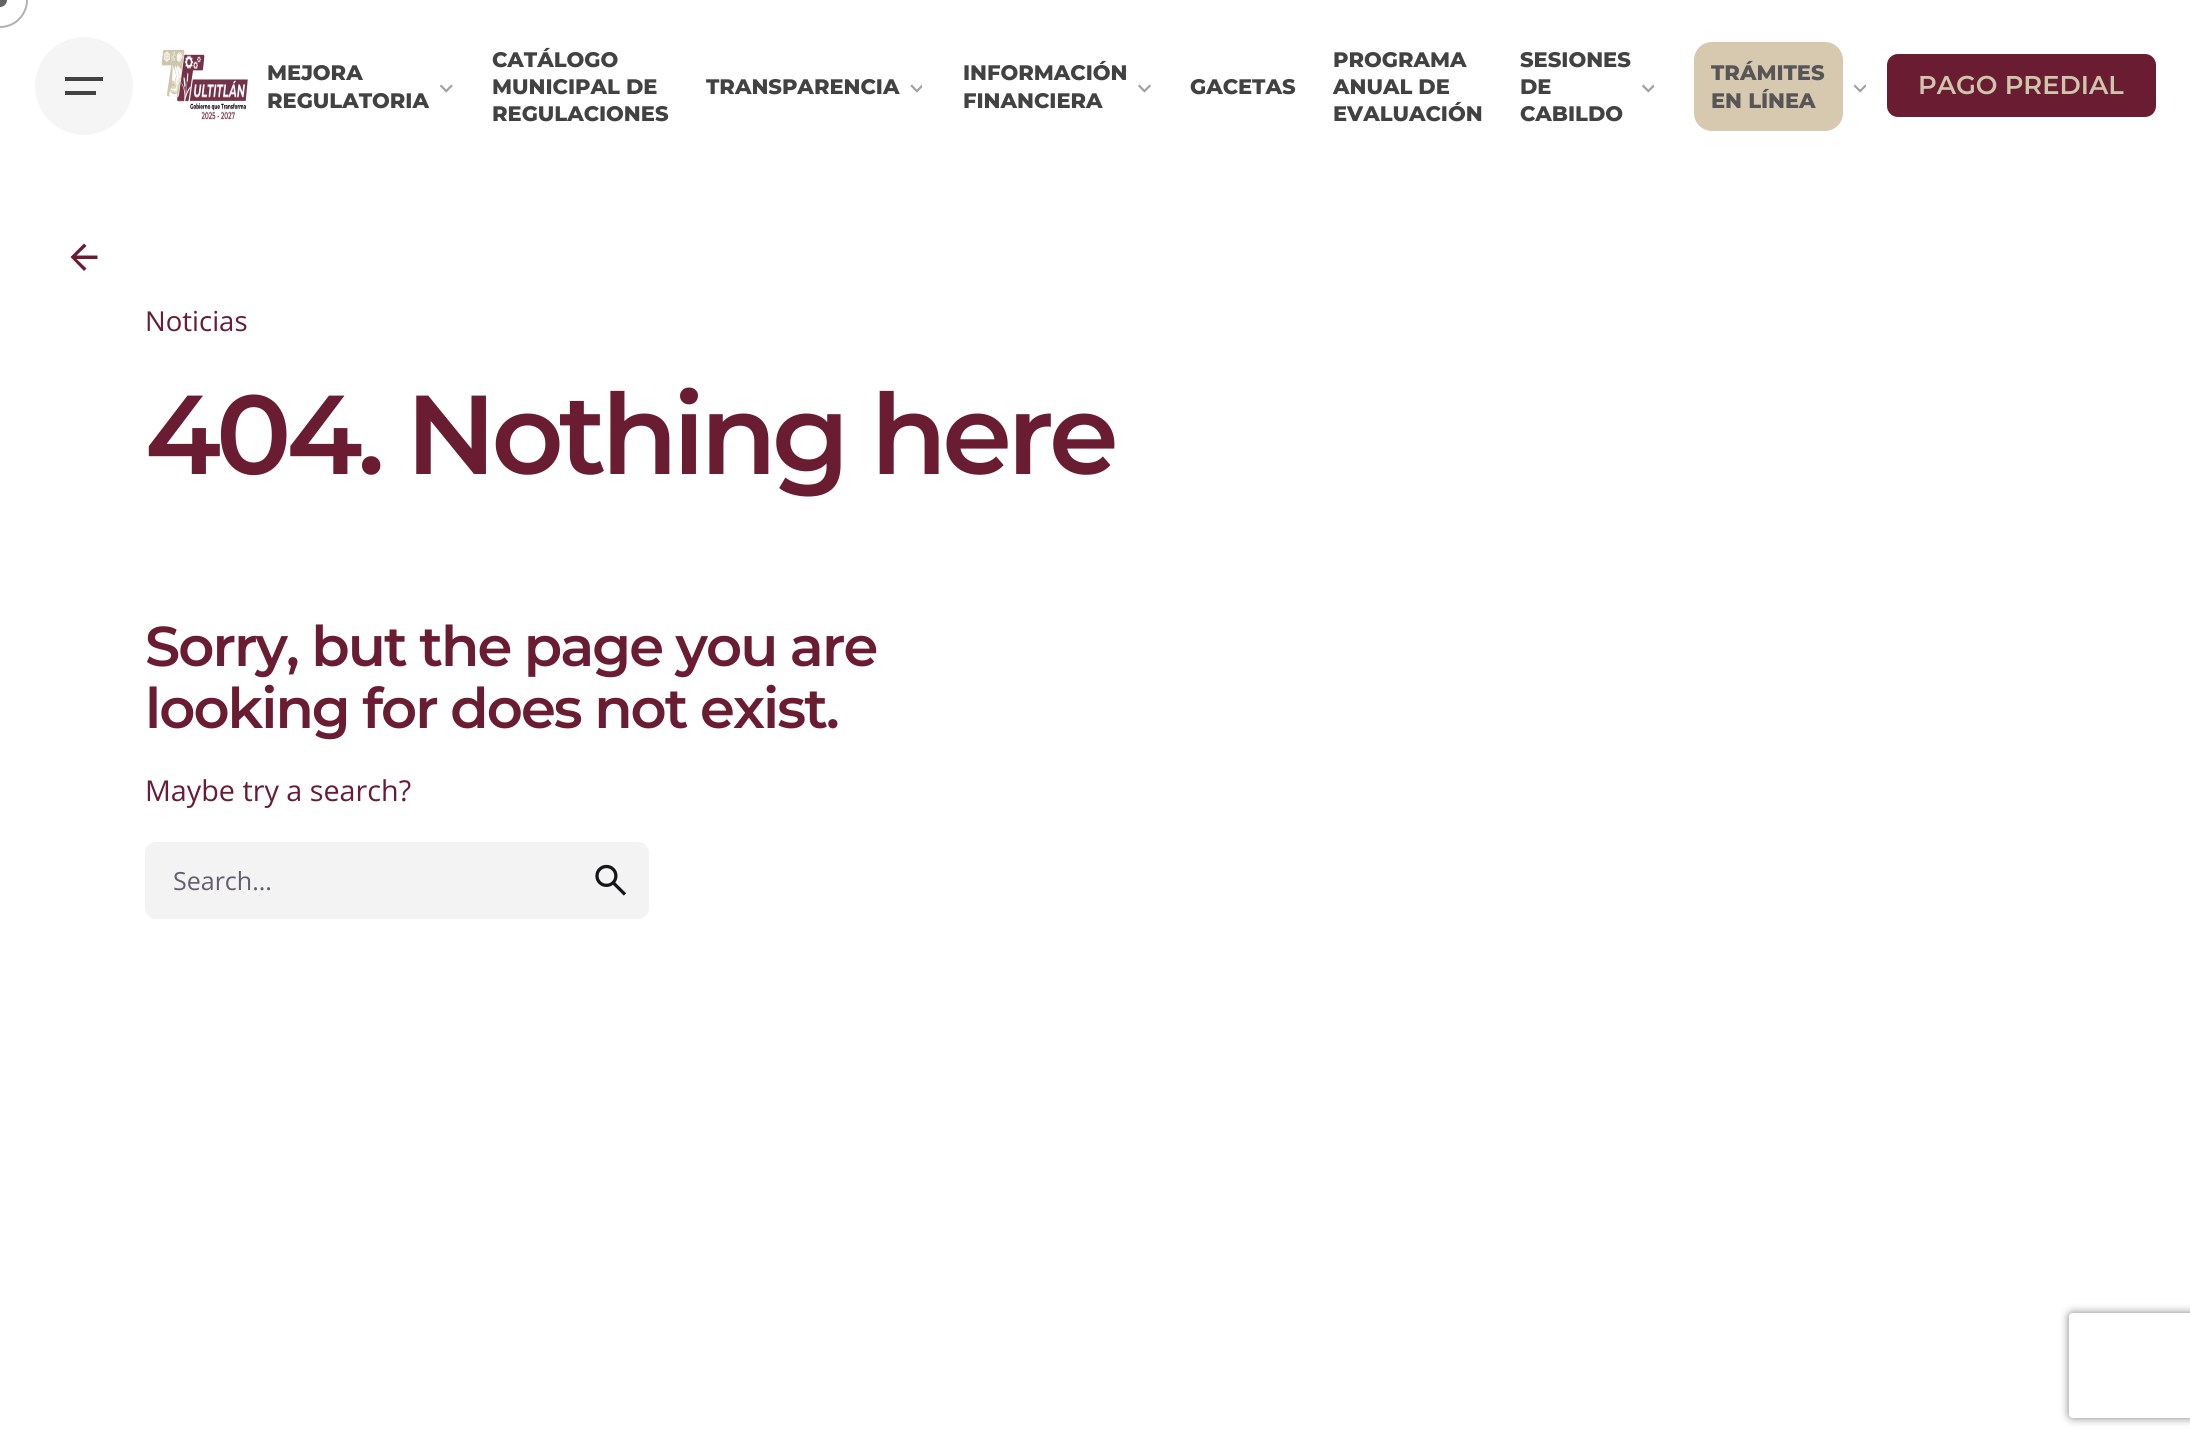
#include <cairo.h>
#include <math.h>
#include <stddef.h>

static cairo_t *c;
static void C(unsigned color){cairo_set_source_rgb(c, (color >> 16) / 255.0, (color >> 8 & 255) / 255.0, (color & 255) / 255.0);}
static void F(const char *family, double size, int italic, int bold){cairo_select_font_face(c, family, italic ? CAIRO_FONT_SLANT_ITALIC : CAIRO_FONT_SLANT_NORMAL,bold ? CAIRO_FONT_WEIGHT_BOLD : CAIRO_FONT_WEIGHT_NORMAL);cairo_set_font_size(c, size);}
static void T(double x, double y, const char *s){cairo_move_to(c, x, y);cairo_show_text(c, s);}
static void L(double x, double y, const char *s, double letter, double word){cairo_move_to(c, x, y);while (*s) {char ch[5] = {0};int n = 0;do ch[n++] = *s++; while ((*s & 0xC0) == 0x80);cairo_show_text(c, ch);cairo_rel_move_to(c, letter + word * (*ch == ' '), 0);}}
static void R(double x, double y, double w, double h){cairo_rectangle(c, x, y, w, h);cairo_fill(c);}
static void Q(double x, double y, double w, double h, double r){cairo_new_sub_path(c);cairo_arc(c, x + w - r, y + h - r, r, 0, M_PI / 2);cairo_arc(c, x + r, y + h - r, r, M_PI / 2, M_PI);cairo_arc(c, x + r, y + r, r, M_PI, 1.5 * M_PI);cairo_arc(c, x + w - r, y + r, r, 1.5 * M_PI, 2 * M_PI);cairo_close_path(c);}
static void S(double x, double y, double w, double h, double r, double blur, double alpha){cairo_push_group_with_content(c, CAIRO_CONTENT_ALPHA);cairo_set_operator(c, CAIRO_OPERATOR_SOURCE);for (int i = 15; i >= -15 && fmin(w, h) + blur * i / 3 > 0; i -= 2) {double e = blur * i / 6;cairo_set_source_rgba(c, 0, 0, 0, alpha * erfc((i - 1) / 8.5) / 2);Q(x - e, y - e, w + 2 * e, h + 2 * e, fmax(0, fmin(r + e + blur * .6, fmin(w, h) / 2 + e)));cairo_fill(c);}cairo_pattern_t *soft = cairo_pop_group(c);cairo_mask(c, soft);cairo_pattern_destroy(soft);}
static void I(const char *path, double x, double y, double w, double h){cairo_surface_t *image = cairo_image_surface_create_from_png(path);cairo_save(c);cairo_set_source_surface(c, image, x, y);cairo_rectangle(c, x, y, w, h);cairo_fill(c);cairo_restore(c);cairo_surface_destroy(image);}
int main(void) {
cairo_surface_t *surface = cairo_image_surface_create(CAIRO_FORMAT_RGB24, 2190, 1441);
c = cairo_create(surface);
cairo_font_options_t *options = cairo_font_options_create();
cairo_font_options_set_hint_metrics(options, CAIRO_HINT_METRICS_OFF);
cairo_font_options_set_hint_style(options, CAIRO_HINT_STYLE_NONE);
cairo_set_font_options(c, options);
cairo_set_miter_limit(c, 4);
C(0xffffff);
cairo_paint(c);
cairo_arc(c,0,0,27,0,2 * M_PI);
C(0xb1b1b1);
cairo_stroke(c);
C(0x636363);
cairo_arc(c,0,0,7,0,2 * M_PI);
cairo_fill(c);
C(0xf5f5f6);
cairo_arc(c,84,86,49,0,2 * M_PI);
cairo_fill(c);
C(0x424242);
R(65,77,38,4);
R(65,91,31,4);
I("1.png",161,49,87,71);
F("Montserrat ExtraBold",21,0,0);
T(267,80,"MEJORA");
T(267,108,"REGULATORIA");
I("2.png",439,84,14,9);
T(492,67,"CATÁLOGO");
T(492,94,"MUNICIPAL DE");
T(492,121,"REGULACIONES");
T(706,94,"TRANSPARENCIA");
I("3.png",910,84,12,9);
T(963,80,"INFORMACIÓN");
T(963,108,"FINANCIERA");
I("4.png",1138,84,13,9);
T(1190,94,"GACETAS");
T(1333,67,"PROGRAMA");
T(1333,94,"ANUAL DE");
T(1333,121,"EVALUACIÓN");
T(1520,67,"SESIONES");
T(1520,94,"DE");
T(1520,121,"CABILDO");
I("5.png",1642,84,12,9);
C(0xd7c9af);
Q(1694,42,149,89,18);
cairo_fill(c);
C(0x575556);
T(1711,80,"TRÁMITES");
T(1711,108,"EN LÍNEA");
I("6.png",1853,84,13,9);
C(0x691c32);
Q(1887,54,269,63,11);
cairo_fill(c);
F("Montserrat SemiBold",25.75,0,0);
C(0xcec5aa);
T(1918,94,"PAGO PREDIAL");
C(0x691c32);
cairo_new_path(c);
cairo_move_to(c,76.5,259);
cairo_line_to(c,86.5,268.5);
cairo_line_to(c,84,271);
cairo_line_to(c,70.5,257);
cairo_line_to(c,84,243.5);
cairo_line_to(c,86.5,246);
cairo_line_to(c,76.5,255.5);
cairo_line_to(c,97.5,255.5);
cairo_line_to(c,97.5,259);
cairo_close_path(c);
cairo_fill(c);
F("Open Sans",27.5,0,0);
T(145,331,"Noticias");
F("Montserrat SemiBold",112,0,0);
L(145,474,"404. Nothing here",-5,0);
F("Montserrat SemiBold",56,0,0);
L(145,666,"Sorry, but the page you are",-1.95,0);
L(145,728,"looking for does not exist.",-1.95,0);
F("Open Sans",28.75,0,0);
T(145,801,"Maybe try a search?");
C(0xf3f3f3);
Q(145,842,504,77,11);
cairo_fill(c);
F("Open Sans",25,0,0);
C(0x635d6e);
T(173,890,"Search...");
I("7.png",595,864,32,32);
cairo_save(c);
cairo_set_fill_rule(c,CAIRO_FILL_RULE_EVEN_ODD);
cairo_new_path(c);
cairo_move_to(c,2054,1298);
cairo_line_to(c,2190,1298);
cairo_line_to(c,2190,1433);
cairo_line_to(c,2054,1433);
cairo_close_path(c);
cairo_move_to(c,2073,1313);
cairo_line_to(c,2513,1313);
cairo_curve_to(c,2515,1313,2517,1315,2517,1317);
cairo_line_to(c,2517,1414);
cairo_curve_to(c,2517,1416,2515,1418,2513,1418);
cairo_line_to(c,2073,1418);
cairo_curve_to(c,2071,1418,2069,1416,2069,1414);
cairo_line_to(c,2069,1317);
cairo_curve_to(c,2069,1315,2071,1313,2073,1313);
cairo_close_path(c);
cairo_clip(c);
C(0x808080);
S(2069,1313,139,105,4,4.5,1);
cairo_restore(c);
cairo_surface_write_to_png(surface, "o.png");
cairo_font_options_destroy(options);
cairo_destroy(c);
cairo_surface_destroy(surface);
return 0;
}
